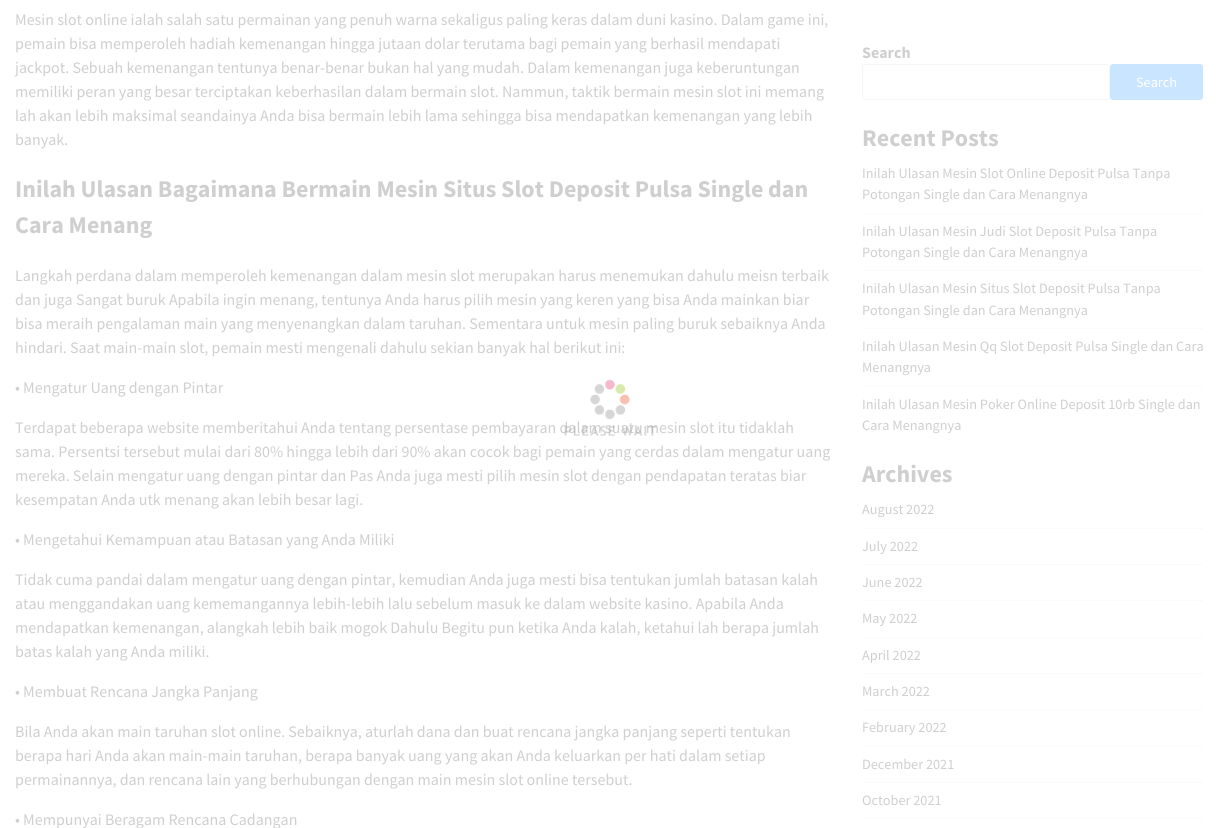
#include <cairo.h>
#include <math.h>
#include <stddef.h>

static cairo_t *c;
static void C(unsigned color){cairo_set_source_rgb(c, (color >> 16) / 255.0, (color >> 8 & 255) / 255.0, (color & 255) / 255.0);}
static void F(const char *family, double size, int italic, int bold){cairo_select_font_face(c, family, italic ? CAIRO_FONT_SLANT_ITALIC : CAIRO_FONT_SLANT_NORMAL,bold ? CAIRO_FONT_WEIGHT_BOLD : CAIRO_FONT_WEIGHT_NORMAL);cairo_set_font_size(c, size);}
static void T(double x, double y, const char *s){cairo_move_to(c, x, y);cairo_show_text(c, s);}
static void R(double x, double y, double w, double h){cairo_rectangle(c, x, y, w, h);cairo_fill(c);}
static void Q(double x, double y, double w, double h, double r){cairo_new_sub_path(c);cairo_arc(c, x + w - r, y + h - r, r, 0, M_PI / 2);cairo_arc(c, x + r, y + h - r, r, M_PI / 2, M_PI);cairo_arc(c, x + r, y + r, r, M_PI, 1.5 * M_PI);cairo_arc(c, x + w - r, y + r, r, 1.5 * M_PI, 2 * M_PI);cairo_close_path(c);}
static void I(const char *path, double x, double y, double w, double h){cairo_surface_t *image = cairo_image_surface_create_from_png(path);cairo_save(c);cairo_set_source_surface(c, image, x, y);cairo_rectangle(c, x, y, w, h);cairo_fill(c);cairo_restore(c);cairo_surface_destroy(image);}
int main(void) {
cairo_surface_t *surface = cairo_image_surface_create(CAIRO_FORMAT_RGB24, 1218, 828);
c = cairo_create(surface);
cairo_font_options_t *options = cairo_font_options_create();
cairo_font_options_set_hint_metrics(options, CAIRO_HINT_METRICS_OFF);
cairo_font_options_set_hint_style(options, CAIRO_HINT_STYLE_NONE);
cairo_set_font_options(c, options);
cairo_set_miter_limit(c, 4);
C(0xffffff);
cairo_paint(c);
F("Source Sans Pro",16,0,0);
C(0xcfcfd0);
T(15,25,"Mesin slot online ialah salah satu permainan yang penuh warna sekaligus paling keras dalam duni kasino. Dalam game ini,");
T(15,49,"pemain bisa memperoleh hadiah kemenangan hingga jutaan dolar terutama bagi pemain yang berhasil mendapati");
T(15,73,"jackpot. Sebuah kemenangan tentunya benar-benar bukan hal yang mudah. Dalam kemenangan juga keberuntungan");
T(15,97,"memiliki peran yang besar terciptakan keberhasilan dalam bermain slot. Nammun, taktik bermain mesin slot ini memang");
T(15,121,"lah akan lebih maksimal seandainya Anda bisa bermain lebih lama sehingga bisa mendapatkan kemenangan yang lebih");
T(15,145,"banyak.");
F("Source Sans Pro",24,0,1);
T(15,197,"Inilah Ulasan Bagaimana Bermain Mesin Situs Slot Deposit Pulsa Single dan");
T(15,233,"Cara Menang");
F("Source Sans Pro",16,0,0);
T(15,281,"Langkah perdana dalam memperoleh kemenangan dalam mesin slot merupakan harus menemukan dahulu meisn terbaik");
T(15,305,"dan juga Sangat buruk Apabila ingin menang, tentunya Anda harus pilih mesin yang keren yang bisa Anda mainkan biar");
T(15,329,"bisa meraih pengalaman main yang menyenangkan dalam taruhan. Sementara untuk mesin paling buruk sebaiknya Anda");
T(15,353,"hindari. Saat main-main slot, pemain mesti mengenali dahulu sekian banyak hal berikut ini:");
T(15,393,"• Mengatur Uang dengan Pintar");
T(15,433,"Terdapat beberapa website memberitahui Anda tentang persentase pembayaran dalam suatu mesin slot itu tidaklah");
T(15,457,"sama. Persentsi tersebut mulai dari 80% hingga lebih dari 90% akan cocok bagi pemain yang cerdas dalam mengatur uang");
T(15,481,"mereka. Selain mengatur uang dengan pintar dan Pas Anda juga mesti pilih mesin slot dengan pendapatan teratas biar");
T(15,505,"kesempatan Anda utk menang akan lebih besar lagi.");
T(15,545,"• Mengetahui Kemampuan atau Batasan yang Anda Miliki");
T(15,585,"Tidak cuma pandai dalam mengatur uang dengan pintar, kemudian Anda juga mesti bisa tentukan jumlah batasan kalah");
T(15,609,"atau menggandakan uang kememangannya lebih-lebih lalu sebelum masuk ke dalam website kasino. Apabila Anda");
T(15,633,"mendapatkan kemenangan, alangkah lebih baik mogok Dahulu Begitu pun ketika Anda kalah, ketahui lah berapa jumlah");
T(15,657,"batas kalah yang Anda miliki.");
T(15,697,"• Membuat Rencana Jangka Panjang");
T(15,737,"Bila Anda akan main taruhan slot online. Sebaiknya, aturlah dana dan buat rencana jangka panjang seperti tentukan");
T(15,761,"berapa hari Anda akan main-main taruhan, berapa banyak uang yang akan Anda keluarkan per hati dalam setiap");
T(15,785,"permainannya, dan rencana lain yang berhubungan dengan main mesin slot online tersebut.");
T(15,825,"• Mempunyai Beragam Rencana Cadangan");
F("Source Sans Pro",16,0,1);
T(862,58,"Search");
Q(862.5,64.5,247,35,2.5);
C(0xf6f5f6);
cairo_set_line_width(c,1);
cairo_stroke(c);
C(0xc9e5ff);
Q(1110.5,64.5,92,35,2.5);
cairo_fill_preserve(c);
cairo_stroke(c);
F("Source Sans Pro",14.25,0,0);
C(0xffffff);
T(1136,87,"Search");
F("Source Sans Pro",24,0,1);
C(0xcfcfd0);
T(862,146,"Recent Posts");
C(0xfafafa);
R(862,213,341,1);
F("Source Sans Pro",14.25,0,0);
C(0xcfcfd0);
T(862,178,"Inilah Ulasan Mesin Slot Online Deposit Pulsa Tanpa");
T(862,199,"Potongan Single dan Cara Menangnya");
C(0xfafafa);
R(862,270,341,1);
C(0xcfcfd0);
T(862,236,"Inilah Ulasan Mesin Judi Slot Deposit Pulsa Tanpa");
T(862,257,"Potongan Single dan Cara Menangnya");
C(0xfafafa);
R(862,328,341,1);
C(0xcfcfd0);
T(862,293,"Inilah Ulasan Mesin Situs Slot Deposit Pulsa Tanpa");
T(862,315,"Potongan Single dan Cara Menangnya");
C(0xfafafa);
R(862,386,341,1);
C(0xcfcfd0);
T(862,351,"Inilah Ulasan Mesin Qq Slot Deposit Pulsa Single dan Cara");
T(862,372,"Menangnya");
T(862,409,"Inilah Ulasan Mesin Poker Online Deposit 10rb Single dan");
T(862,430,"Cara Menangnya");
F("Source Sans Pro",24,0,1);
T(862,482,"Archives");
C(0xfafafa);
R(862,528,341,1);
F("Source Sans Pro",14.25,0,0);
C(0xcfcfd0);
T(862,514,"August 2022");
C(0xfafafa);
R(862,564,341,1);
C(0xcfcfd0);
T(862,551,"July 2022");
C(0xfafafa);
R(862,600,341,1);
C(0xcfcfd0);
T(862,587,"June 2022");
C(0xfafafa);
R(862,637,341,1);
C(0xcfcfd0);
T(862,623,"May 2022");
C(0xfafafa);
R(862,673,341,1);
C(0xcfcfd0);
T(862,660,"April 2022");
C(0xfafafa);
R(862,709,341,1);
C(0xcfcfd0);
T(862,696,"March 2022");
C(0xfafafa);
R(862,746,341,1);
C(0xcfcfd0);
T(862,732,"February 2022");
C(0xfafafa);
R(862,782,341,1);
C(0xcfcfd0);
T(862,769,"December 2021");
C(0xfafafa);
R(862,818,341,1);
C(0xcfcfd0);
T(862,805,"October 2021");
I("1.png",564,379,93,57);
cairo_surface_write_to_png(surface, "o.png");
cairo_font_options_destroy(options);
cairo_destroy(c);
cairo_surface_destroy(surface);
return 0;
}
